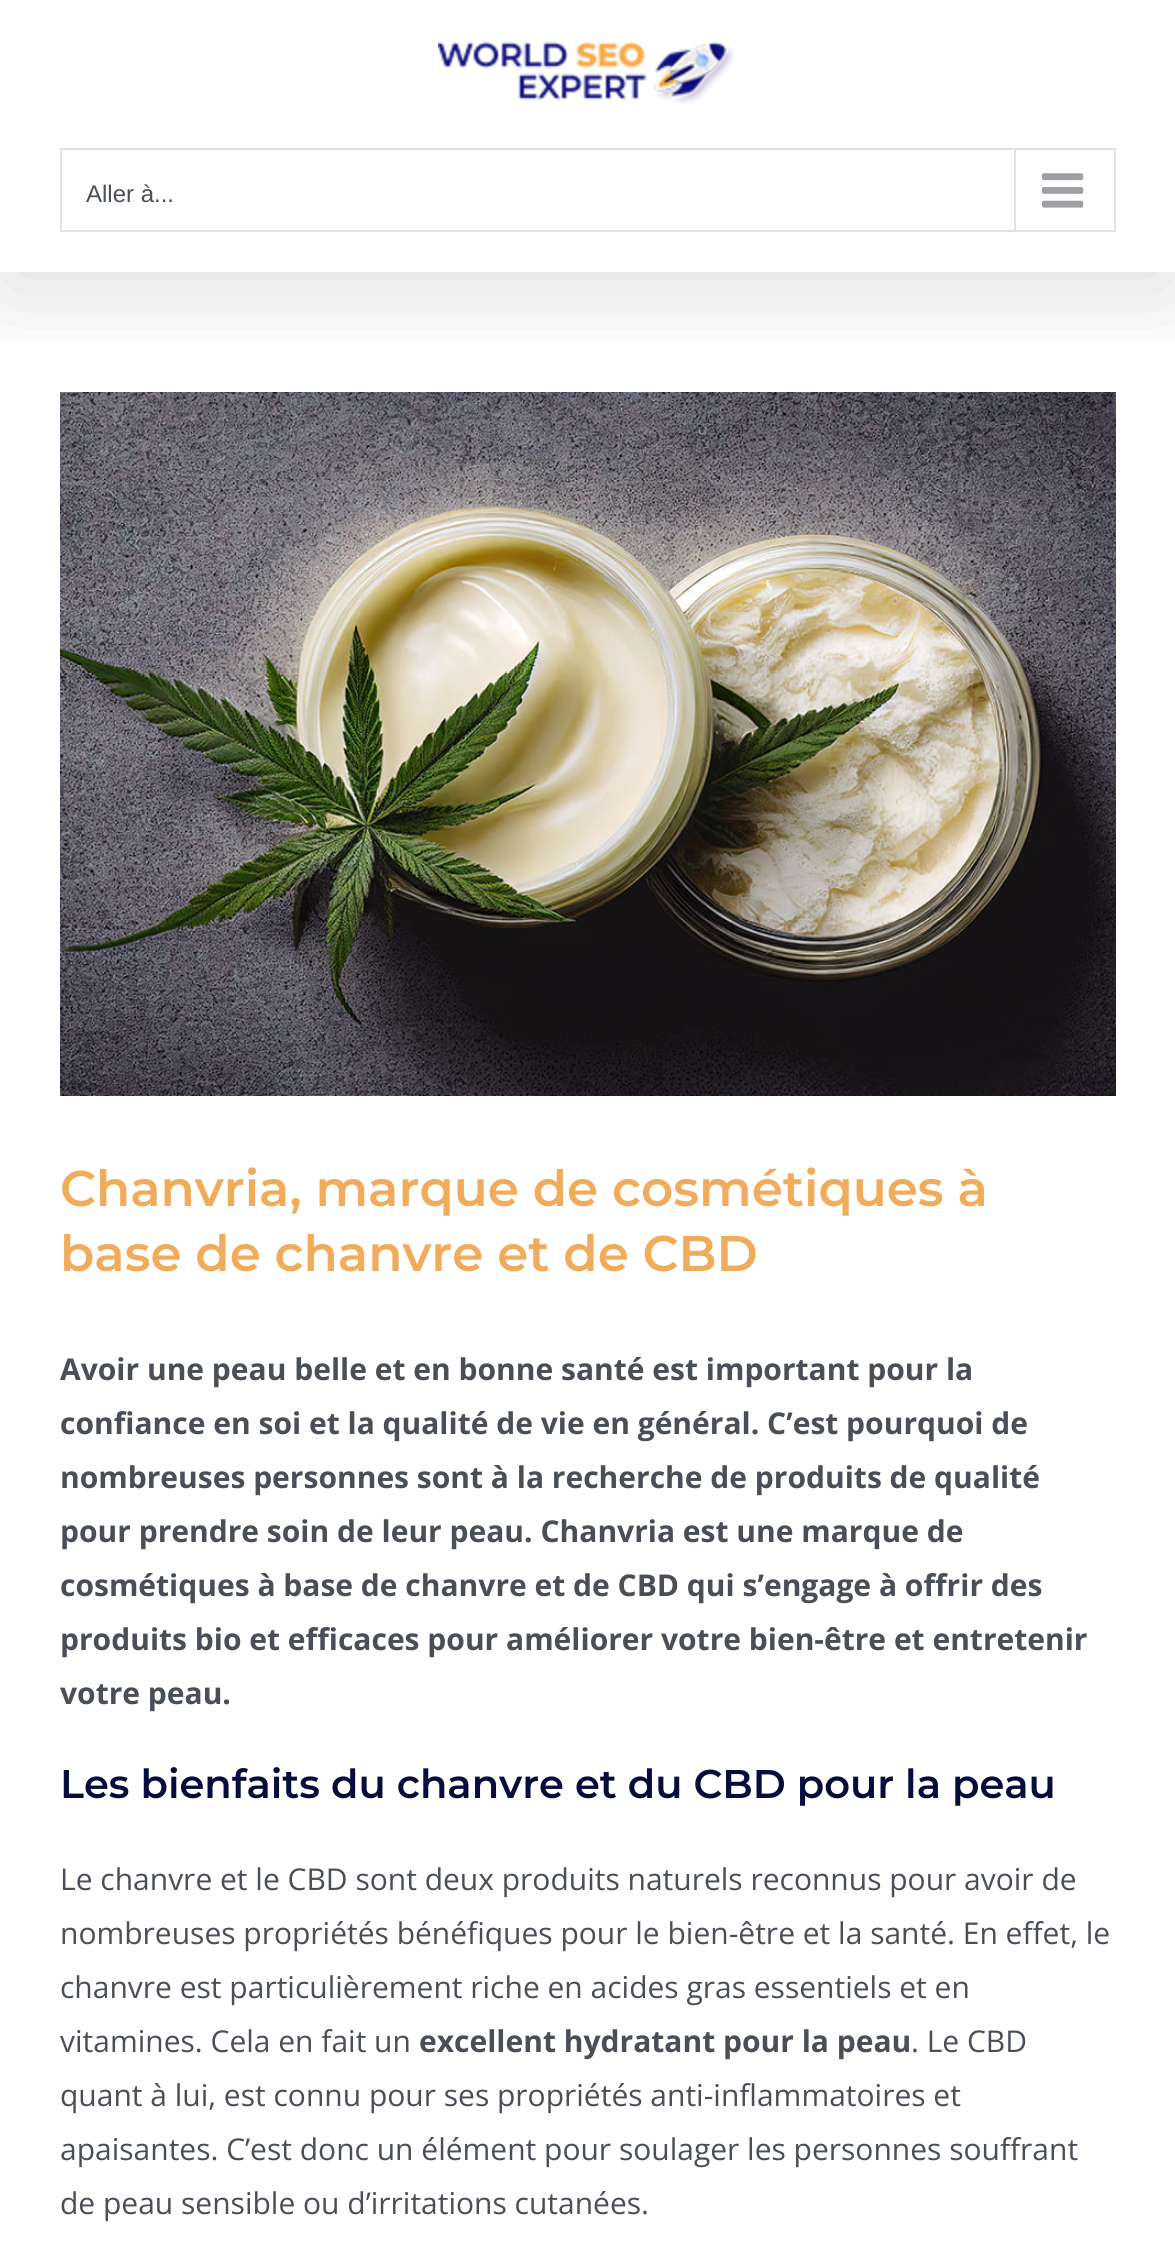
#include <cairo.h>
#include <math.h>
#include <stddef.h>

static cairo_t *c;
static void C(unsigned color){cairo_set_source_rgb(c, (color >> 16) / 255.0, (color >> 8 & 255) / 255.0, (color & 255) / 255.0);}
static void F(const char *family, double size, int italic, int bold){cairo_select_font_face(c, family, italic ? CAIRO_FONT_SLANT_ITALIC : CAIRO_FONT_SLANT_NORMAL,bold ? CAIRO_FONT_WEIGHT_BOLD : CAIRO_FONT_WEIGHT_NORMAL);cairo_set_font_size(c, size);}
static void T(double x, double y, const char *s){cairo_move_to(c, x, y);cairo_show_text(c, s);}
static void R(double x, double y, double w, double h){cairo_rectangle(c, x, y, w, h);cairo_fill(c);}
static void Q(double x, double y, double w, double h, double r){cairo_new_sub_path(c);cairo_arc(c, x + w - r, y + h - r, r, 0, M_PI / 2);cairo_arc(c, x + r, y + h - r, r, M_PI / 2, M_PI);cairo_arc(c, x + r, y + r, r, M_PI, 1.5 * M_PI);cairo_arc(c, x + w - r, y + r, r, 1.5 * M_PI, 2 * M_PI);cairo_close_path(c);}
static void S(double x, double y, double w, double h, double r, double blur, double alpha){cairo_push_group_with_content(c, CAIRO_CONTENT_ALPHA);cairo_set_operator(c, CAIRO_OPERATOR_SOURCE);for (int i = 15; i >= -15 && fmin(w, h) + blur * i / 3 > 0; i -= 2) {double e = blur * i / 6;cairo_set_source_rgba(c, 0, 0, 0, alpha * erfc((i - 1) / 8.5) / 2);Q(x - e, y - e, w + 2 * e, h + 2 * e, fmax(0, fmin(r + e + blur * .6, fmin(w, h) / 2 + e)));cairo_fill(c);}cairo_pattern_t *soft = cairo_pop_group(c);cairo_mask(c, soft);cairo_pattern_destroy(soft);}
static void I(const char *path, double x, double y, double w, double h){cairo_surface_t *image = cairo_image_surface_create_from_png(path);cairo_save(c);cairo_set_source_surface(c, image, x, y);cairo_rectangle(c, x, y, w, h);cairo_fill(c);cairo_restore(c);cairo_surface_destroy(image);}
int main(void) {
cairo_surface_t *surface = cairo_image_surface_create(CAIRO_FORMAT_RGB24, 1175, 2260);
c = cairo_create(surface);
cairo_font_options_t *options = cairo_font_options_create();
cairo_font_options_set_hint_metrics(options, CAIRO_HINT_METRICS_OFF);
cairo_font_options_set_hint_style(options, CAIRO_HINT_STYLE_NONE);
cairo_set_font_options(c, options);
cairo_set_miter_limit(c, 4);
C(0xffffff);
cairo_paint(c);
I("3.png",60,392,1056,704);
cairo_save(c);
cairo_rectangle(c,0,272,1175,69);
cairo_clip(c);
C(0x000000);
S(4,24,1168,264,0,50,.14);
cairo_restore(c);
I("1.png",438,41,296,63);
cairo_rectangle(c,61,149,1054,82);
C(0xe2e2e2);
cairo_stroke(c);
F("Liberation Sans",24,0,0);
C(0x4a4e57);
T(86,202,"Aller à...");
C(0xe2e2e2);
R(1014,150,2,80);
I("2.png",1042,173,42,35);
F("Montserrat SemiBold",50,0,0);
C(0xf0ac5b);
T(60,1206,"Chanvria, marque de cosmétiques à");
T(60,1271,"base de chanvre et de CBD");
F("Open Sans",30,0,1);
C(0x4a4e57);
T(60,1380,"Avoir une peau belle et en bonne santé est important pour la");
T(60,1434,"confiance en soi et la qualité de vie en général. C’est pourquoi de");
T(60,1488,"nombreuses personnes sont à la recherche de produits de qualité");
T(60,1542,"pour prendre soin de leur peau. Chanvria est une marque de");
T(60,1596,"cosmétiques à base de chanvre et de CBD qui s’engage à offrir des");
T(60,1650,"produits bio et efficaces pour améliorer votre bien-être et entretenir");
T(60,1704,"votre peau.");
F("Montserrat SemiBold",40,0,0);
C(0x060d3c);
T(60,1798,"Les bienfaits du chanvre et du CBD pour la peau");
F("Open Sans",30,0,0);
C(0x4a4e57);
T(60,1890,"Le chanvre et le CBD sont deux produits naturels reconnus pour avoir de");
T(60,1944,"nombreuses propriétés bénéfiques pour le bien-être et la santé. En effet, le");
T(60,1998,"chanvre est particulièrement riche en acides gras essentiels et en");
T(60,2052,"vitamines. Cela en fait un");
F("Open Sans",30,0,1);
T(419,2052,"excellent hydratant pour la peau");
F("Open Sans",30,0,0);
T(911,2052,". Le CBD");
T(60,2106,"quant à lui, est connu pour ses propriétés anti-inflammatoires et");
T(60,2160,"apaisantes. C’est donc un élément pour soulager les personnes souffrant");
T(60,2214,"de peau sensible ou d’irritations cutanées.");
cairo_surface_write_to_png(surface, "o.png");
cairo_font_options_destroy(options);
cairo_destroy(c);
cairo_surface_destroy(surface);
return 0;
}
